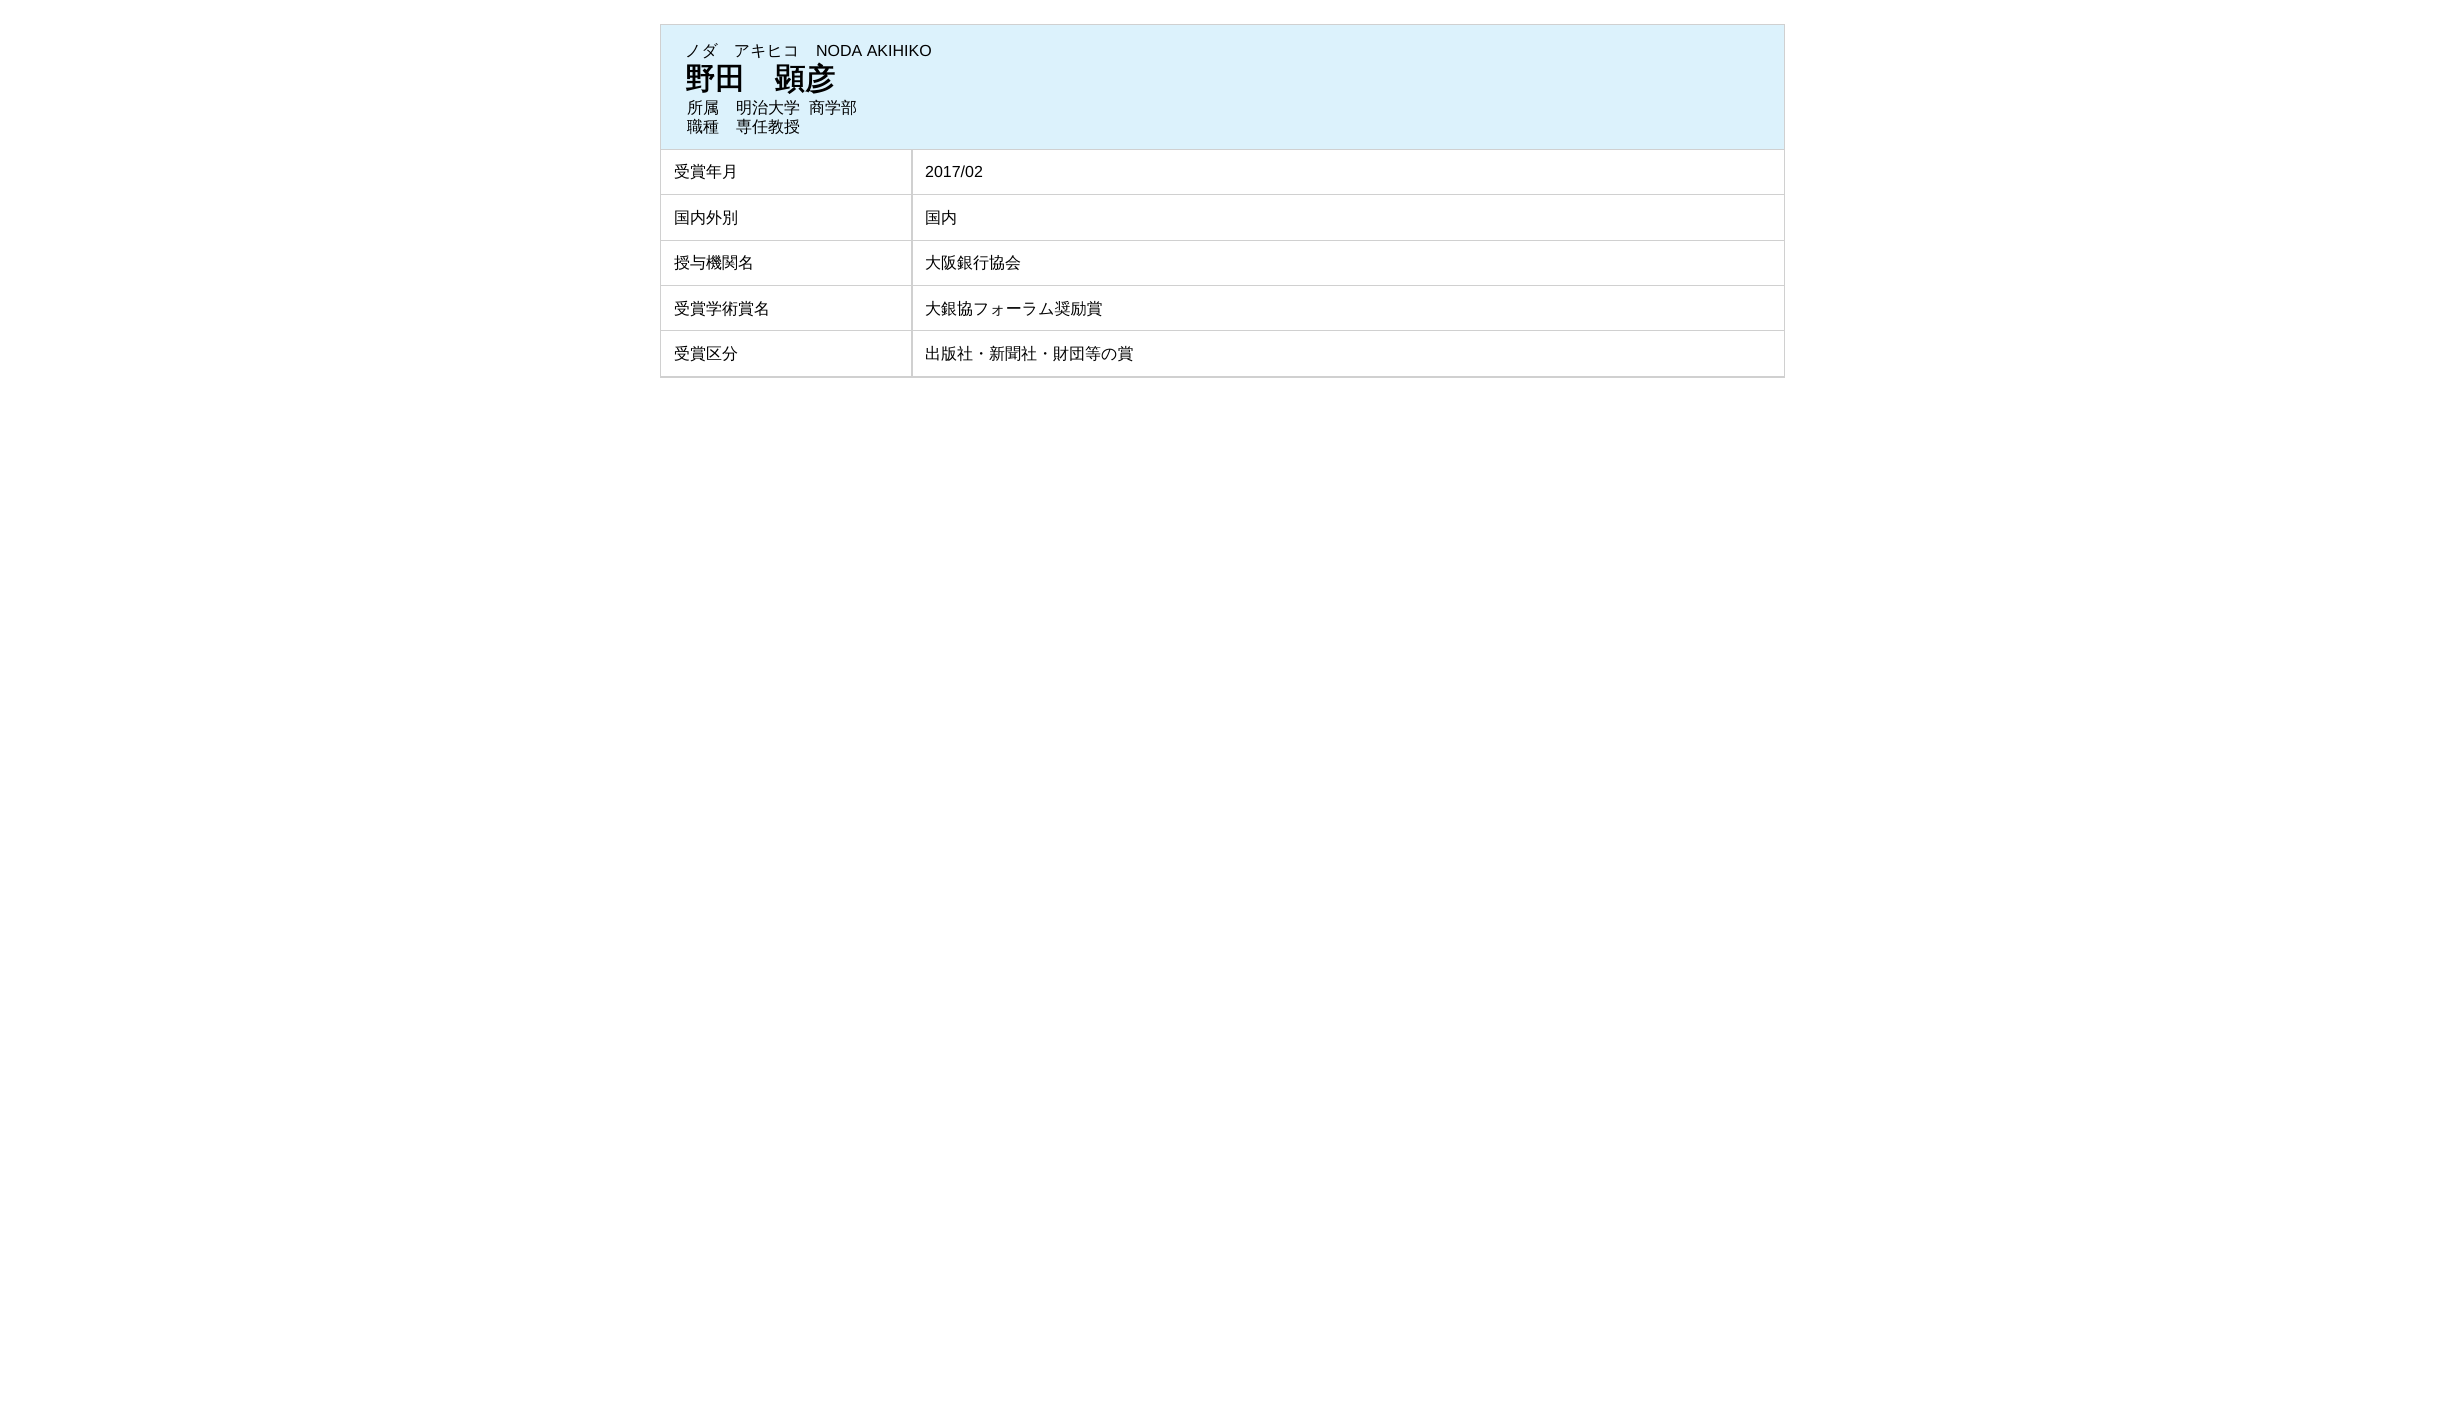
#include <cairo.h>
#include <math.h>
#include <stddef.h>

static cairo_t *c;
static void C(unsigned color){cairo_set_source_rgb(c, (color >> 16) / 255.0, (color >> 8 & 255) / 255.0, (color & 255) / 255.0);}
static void F(const char *family, double size, int italic, int bold){cairo_select_font_face(c, family, italic ? CAIRO_FONT_SLANT_ITALIC : CAIRO_FONT_SLANT_NORMAL,bold ? CAIRO_FONT_WEIGHT_BOLD : CAIRO_FONT_WEIGHT_NORMAL);cairo_set_font_size(c, size);}
static void T(double x, double y, const char *s){cairo_move_to(c, x, y);cairo_show_text(c, s);}
static void R(double x, double y, double w, double h){cairo_rectangle(c, x, y, w, h);cairo_fill(c);}
int main(void) {
cairo_surface_t *surface = cairo_image_surface_create(CAIRO_FORMAT_RGB24, 2444, 1427);
c = cairo_create(surface);
cairo_font_options_t *options = cairo_font_options_create();
cairo_font_options_set_hint_metrics(options, CAIRO_HINT_METRICS_OFF);
cairo_font_options_set_hint_style(options, CAIRO_HINT_STYLE_NONE);
cairo_set_font_options(c, options);
cairo_set_miter_limit(c, 4);
C(0xffffff);
cairo_paint(c);
C(0xd0d0d0);
R(660,24,1125,354);
C(0xdcf2fc);
R(661,25,1123,124);
F("WenQuanYi Zen Hei Medium",16,0,0);
C(0x000000);
T(685,56,"ノダ　アキヒコ");
F("Liberation Sans",16,0,0);
T(816,56,"NODA AKIHIKO");
F("WenQuanYi Zen Hei",30,0,1);
T(685,89,"野田　顕彦");
F("WenQuanYi Zen Hei Medium",16,0,0);
T(687,113,"所属");
T(736,113,"明治大学");
T(809,113,"商学部");
T(687,132,"職種");
T(736,132,"専任教授");
C(0xffffff);
R(661,150,250,44);
C(0x000000);
T(674,177,"受賞年月");
C(0xffffff);
R(913,150,871,44);
F("Liberation Sans",16,0,0);
C(0x000000);
T(925,177,"2017/02");
C(0xffffff);
R(661,195,250,45);
F("WenQuanYi Zen Hei Medium",16,0,0);
C(0x000000);
T(674,223,"国内外別");
C(0xffffff);
R(913,195,871,45);
C(0x000000);
T(925,223,"国内");
C(0xffffff);
R(661,241,250,44);
C(0x000000);
T(674,268,"授与機関名");
C(0xffffff);
R(913,241,871,44);
C(0x000000);
T(925,268,"大阪銀行協会");
C(0xffffff);
R(661,286,250,44);
C(0x000000);
T(674,314,"受賞学術賞名");
C(0xffffff);
R(913,286,871,44);
C(0x000000);
T(925,314,"大銀協フォーラム奨励賞");
C(0xffffff);
R(661,331,250,45);
C(0x000000);
T(674,359,"受賞区分");
C(0xffffff);
R(913,331,871,45);
C(0x000000);
T(925,359,"出版社・新聞社・財団等の賞");
cairo_surface_write_to_png(surface, "o.png");
cairo_font_options_destroy(options);
cairo_destroy(c);
cairo_surface_destroy(surface);
return 0;
}
